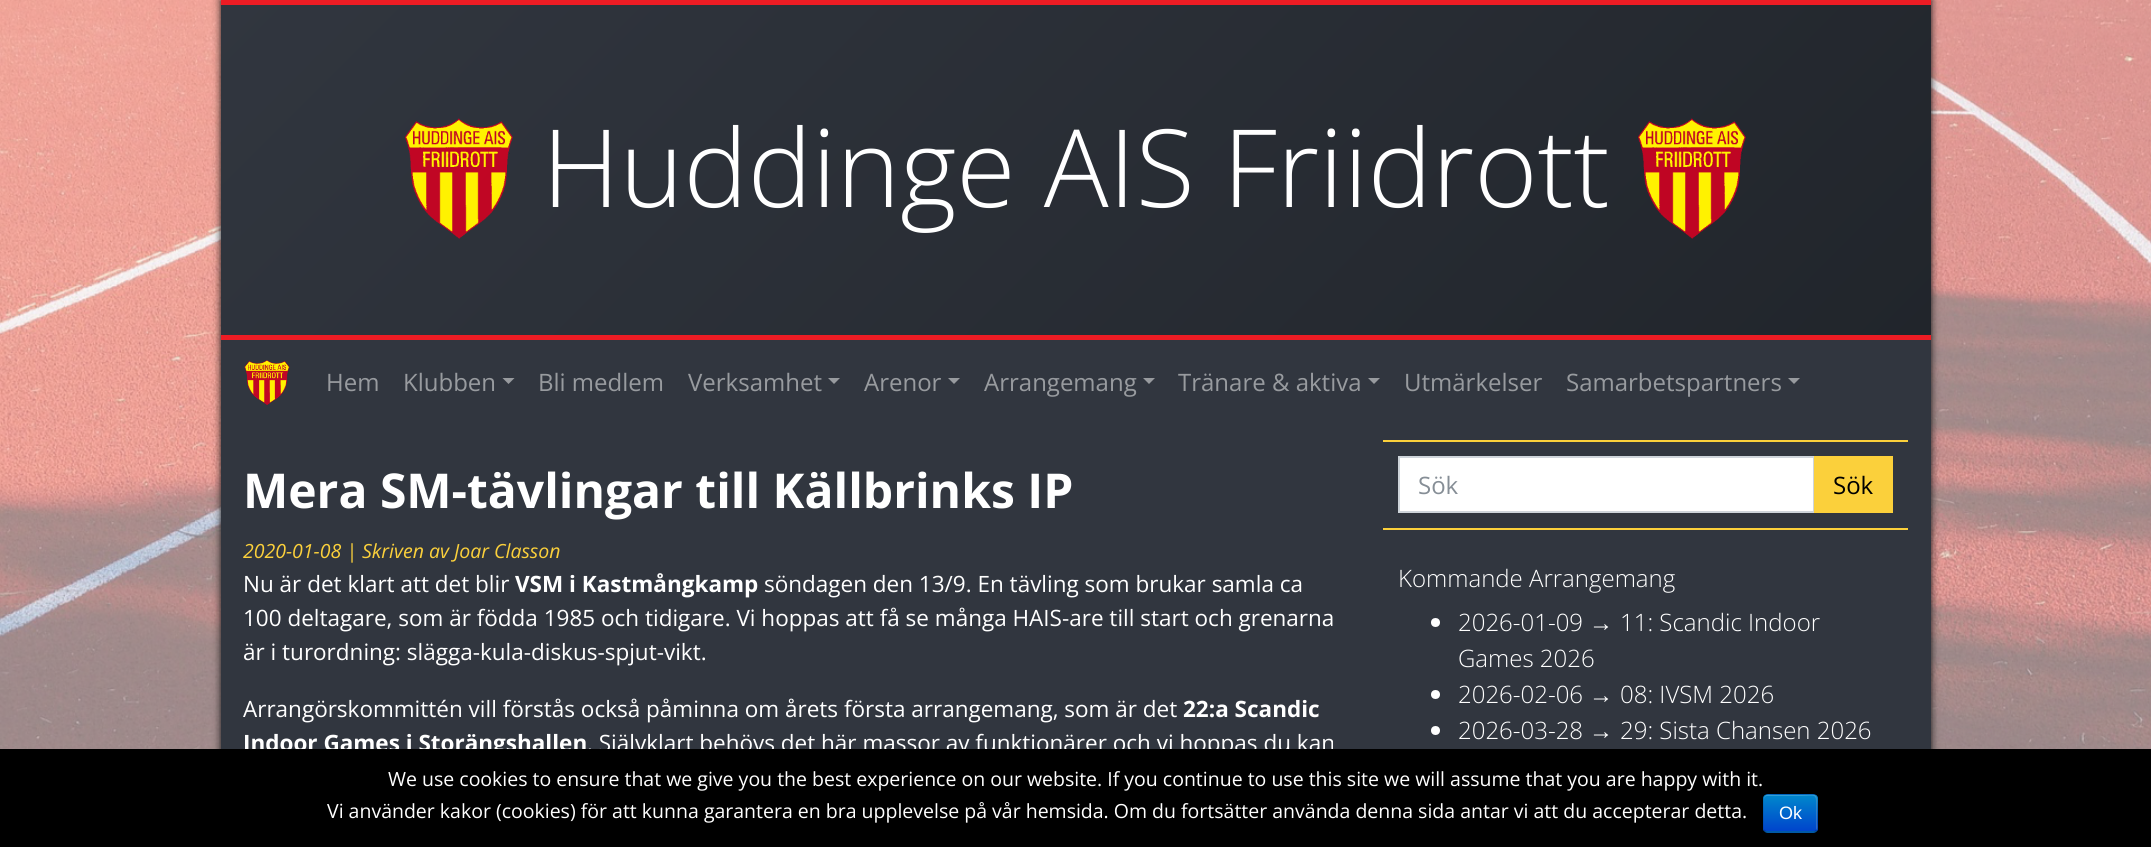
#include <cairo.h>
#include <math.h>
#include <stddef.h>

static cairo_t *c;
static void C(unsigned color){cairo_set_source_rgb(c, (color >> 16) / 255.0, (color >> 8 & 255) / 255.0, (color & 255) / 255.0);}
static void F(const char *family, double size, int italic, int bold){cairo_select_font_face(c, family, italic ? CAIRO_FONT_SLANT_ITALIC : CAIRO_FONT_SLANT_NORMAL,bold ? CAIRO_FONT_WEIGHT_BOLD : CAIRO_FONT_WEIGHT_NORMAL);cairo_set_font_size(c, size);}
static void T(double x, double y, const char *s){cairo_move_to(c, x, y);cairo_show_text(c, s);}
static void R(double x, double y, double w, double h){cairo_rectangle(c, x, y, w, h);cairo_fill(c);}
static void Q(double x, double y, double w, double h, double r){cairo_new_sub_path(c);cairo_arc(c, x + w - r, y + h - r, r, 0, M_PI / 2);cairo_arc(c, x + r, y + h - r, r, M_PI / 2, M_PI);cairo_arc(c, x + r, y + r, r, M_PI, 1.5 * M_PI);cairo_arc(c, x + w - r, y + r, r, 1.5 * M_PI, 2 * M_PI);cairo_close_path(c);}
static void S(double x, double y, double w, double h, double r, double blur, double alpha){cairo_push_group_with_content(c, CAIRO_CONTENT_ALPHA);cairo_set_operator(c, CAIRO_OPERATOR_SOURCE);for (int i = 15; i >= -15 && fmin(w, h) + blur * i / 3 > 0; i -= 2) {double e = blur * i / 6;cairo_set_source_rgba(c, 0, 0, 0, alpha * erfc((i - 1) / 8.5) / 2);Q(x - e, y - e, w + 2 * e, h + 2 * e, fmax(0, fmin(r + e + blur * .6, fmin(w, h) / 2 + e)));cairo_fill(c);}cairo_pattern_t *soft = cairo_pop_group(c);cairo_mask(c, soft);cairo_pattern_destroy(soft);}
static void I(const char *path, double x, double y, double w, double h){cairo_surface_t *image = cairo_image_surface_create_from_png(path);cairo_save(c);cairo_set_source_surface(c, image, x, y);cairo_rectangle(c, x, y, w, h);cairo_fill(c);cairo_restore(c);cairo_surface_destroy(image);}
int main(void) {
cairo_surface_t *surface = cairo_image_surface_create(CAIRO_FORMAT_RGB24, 2151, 847);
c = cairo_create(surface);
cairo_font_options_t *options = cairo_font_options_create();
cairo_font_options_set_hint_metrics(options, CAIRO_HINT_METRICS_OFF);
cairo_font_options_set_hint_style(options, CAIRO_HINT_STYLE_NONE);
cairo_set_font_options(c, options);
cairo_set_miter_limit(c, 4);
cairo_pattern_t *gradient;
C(0xffffff);
cairo_paint(c);
I("1.png",0,0,2151,749);
C(0x121212);
S(221,0,1710,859,0,4,1);
C(0x31363f);
R(221,340,1710,409);
gradient = cairo_pattern_create_linear(563,-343,1588,682);
cairo_pattern_add_color_stop_rgba(gradient,0,0.192,0.212,0.247,1);
cairo_pattern_add_color_stop_rgba(gradient,1,0.129,0.145,0.169,1);
cairo_set_source(c,gradient);
cairo_pattern_destroy(gradient);
R(221,5,1710,330);
C(0xed1c24);
R(221,0,1710,5);
I("2.png",405,118,108,121);
F("Open Sans Light",108,0,0);
C(0xffffff);
T(542,207,"Huddinge AIS Friidrott");
I("3.png",1638,118,108,121);
C(0xed1c24);
R(221,335,1710,5);
I("4.png",244,360,46,45);
F("Open Sans",24,0,0);
C(0x989b9f);
T(326,391,"Hem");
T(403,391,"Klubben");
cairo_new_path(c);
cairo_move_to(c,502.5,378);
cairo_line_to(c,514.5,378);
cairo_line_to(c,508.5,384);
cairo_close_path(c);
cairo_fill(c);
T(538,391,"Bli medlem");
T(688,391,"Verksamhet");
cairo_new_path(c);
cairo_move_to(c,828,378);
cairo_line_to(c,840,378);
cairo_line_to(c,834,384);
cairo_close_path(c);
cairo_fill(c);
T(864,391,"Arenor");
cairo_new_path(c);
cairo_move_to(c,948,378);
cairo_line_to(c,960,378);
cairo_line_to(c,954,384);
cairo_close_path(c);
cairo_fill(c);
T(984,391,"Arrangemang");
cairo_new_path(c);
cairo_move_to(c,1143,378);
cairo_line_to(c,1155,378);
cairo_line_to(c,1149,384);
cairo_close_path(c);
cairo_fill(c);
T(1178,391,"Tränare & aktiva");
cairo_new_path(c);
cairo_move_to(c,1368,378);
cairo_line_to(c,1380,378);
cairo_line_to(c,1374,384);
cairo_close_path(c);
cairo_fill(c);
T(1404,391,"Utmärkelser");
T(1566,391,"Samarbetspartners");
cairo_new_path(c);
cairo_move_to(c,1788,378);
cairo_line_to(c,1800,378);
cairo_line_to(c,1794,384);
cairo_close_path(c);
cairo_fill(c);
F("Open Sans",48,0,1);
C(0xffffff);
T(243,508,"Mera SM-tävlingar till Källbrinks IP");
F("Open Sans",19.5,1,0);
C(0xfbd03b);
T(243,558,"2020-01-08 | Skriven av Joar Classon");
F("Open Sans",22.5,0,0);
C(0xffffff);
T(243,592,"Nu är det klart att det blir");
F("Open Sans",22.5,0,1);
T(515,592,"VSM i Kastmångkamp");
F("Open Sans",22.5,0,0);
T(764,592,"söndagen den 13/9. En tävling som brukar samla ca");
T(243,626,"100 deltagare, som är födda 1985 och tidigare. Vi hoppas att få se många HAIS-are till start och grenarna");
T(243,660,"är i turordning: slägga-kula-diskus-spjut-vikt.");
T(243,717,"Arrangörskommittén vill förstås också påminna om årets första arrangemang, som är det");
F("Open Sans",22.5,0,1);
T(1183,717,"22:a Scandic");
T(243,751,"Indoor Games i Storängshallen");
F("Open Sans",22.5,0,0);
T(587,751,". Självklart behövs det här massor av funktionärer och vi hoppas du kan");
C(0xfbd03b);
R(1383,440,525,2);
R(1383,528,525,2);
C(0xffffff);
cairo_rectangle(c,1399,457,415,55);
cairo_fill_preserve(c);
C(0xced4da);
cairo_stroke(c);
F("Open Sans",24,0,0);
C(0x868e96);
T(1418,494,"Sök");
C(0xfbd03b);
R(1814,456,79,57);
C(0x000000);
T(1833,494,"Sök");
F("Open Sans Light",24,0,0);
C(0xffffff);
T(1398,587,"Kommande Arrangemang");
cairo_new_path(c);
cairo_arc(c,1435.5,622.5,4.5,0,2 * M_PI);
cairo_fill(c);
T(1458,631,"2026-01-09");
F("Liberation Sans",24,0,0);
T(1589,631,"→");
F("Open Sans Light",24,0,0);
T(1620,631,"11: Scandic Indoor");
T(1458,667,"Games 2026");
cairo_new_path(c);
cairo_arc(c,1435.5,694.5,4.5,0,2 * M_PI);
cairo_fill(c);
T(1458,703,"2026-02-06");
F("Liberation Sans",24,0,0);
T(1589,703,"→");
F("Open Sans Light",24,0,0);
T(1620,703,"08: IVSM 2026");
cairo_new_path(c);
cairo_arc(c,1435.5,730.5,4.5,0,2 * M_PI);
cairo_fill(c);
T(1458,739,"2026-03-28");
F("Liberation Sans",24,0,0);
T(1589,739,"→");
F("Open Sans Light",24,0,0);
T(1620,739,"29: Sista Chansen 2026");
C(0x000000);
R(0,749,2151,98);
F("Open Sans",19.5,0,0);
C(0xffffff);
T(388,786,"We use cookies to ensure that we give you the best experience on our website. If you continue to use this site we will assume that you are happy with it.");
T(327,818,"Vi använder kakor (cookies) för att kunna garantera en bra upplevelse på vår hemsida. Om du fortsätter använda denna sida antar vi att du accepterar detta.");
C(0x006dcc);
Q(1763,794,55,39,5);
cairo_fill(c);
cairo_save(c);
Q(1763,794,55,39,5);
cairo_clip(c);
gradient = cairo_pattern_create_linear(1790,795,1790,831);
cairo_pattern_add_color_stop_rgba(gradient,0,0,0.533,0.8,1);
cairo_pattern_add_color_stop_rgba(gradient,1,0,0.267,0.8,1);
cairo_set_source(c,gradient);
cairo_pattern_destroy(gradient);
R(1763,795,55,36);
cairo_restore(c);
cairo_set_source_rgba(c,1,1,1,0.2);
cairo_new_path(c);
cairo_move_to(c,1767,796);
cairo_line_to(c,1798,796);
cairo_curve_to(c,1818,796,1816,792,1816,810);
cairo_line_to(c,1816,830);
cairo_curve_to(c,1818,829,1817,825,1817,823);
cairo_line_to(c,1817,813);
cairo_curve_to(c,1817,791,1821,795,1798,795);
cairo_line_to(c,1775,795);
cairo_curve_to(c,1768,795,1764,793,1764,800);
cairo_curve_to(c,1764,798,1765,796,1767,796);
cairo_close_path(c);
cairo_fill(c);
cairo_new_path(c);
cairo_move_to(c,1816,830.5);
cairo_curve_to(c,1815.5,831.5,1814.5,832,1813.5,832);
cairo_line_to(c,1767,832);
cairo_curve_to(c,1766,832,1765,831.5,1764.5,830.5);
cairo_set_source_rgba(c,0,0,0,0.25);
cairo_set_line_width(c,1.5);
cairo_stroke(c);
cairo_new_path(c);
cairo_move_to(c,1764.5,830.5);
cairo_curve_to(c,1763.5,830,1763,829,1763,828);
cairo_line_to(c,1763,798);
cairo_curve_to(c,1763,797,1763.5,796,1764.5,795.5);
cairo_curve_to(c,1765,794.5,1766,794,1767,794);
cairo_line_to(c,1813.5,794);
cairo_curve_to(c,1814.5,794,1815.5,794.5,1816,795.5);
cairo_curve_to(c,1817,796,1817,797,1817,798);
cairo_line_to(c,1817,828);
cairo_curve_to(c,1817,829,1817,830,1816,830.5);
cairo_set_source_rgba(c,0,0,0,0.1);
cairo_stroke(c);
F("Liberation Sans",18,0,0);
C(0xffffff);
T(1779,819,"Ok");
cairo_surface_write_to_png(surface, "o.png");
cairo_font_options_destroy(options);
cairo_destroy(c);
cairo_surface_destroy(surface);
return 0;
}
